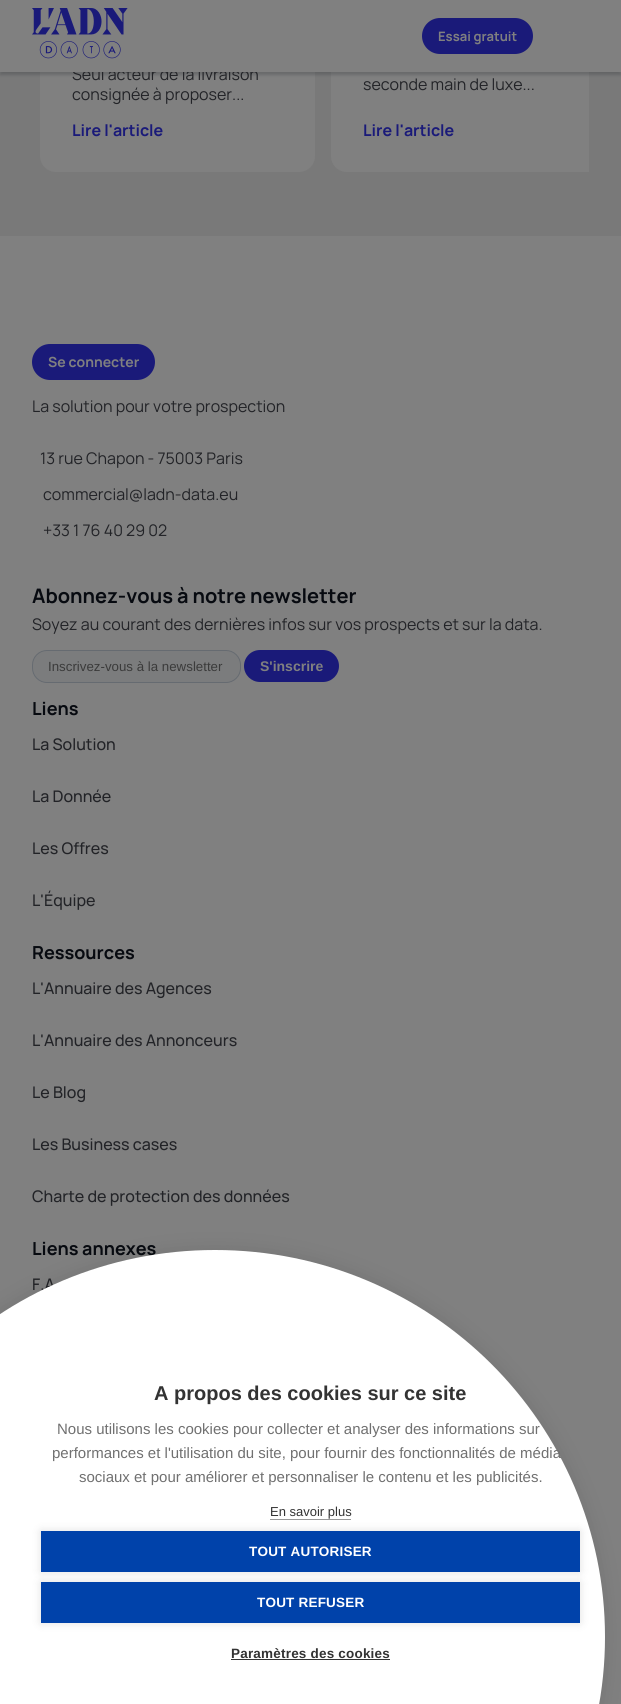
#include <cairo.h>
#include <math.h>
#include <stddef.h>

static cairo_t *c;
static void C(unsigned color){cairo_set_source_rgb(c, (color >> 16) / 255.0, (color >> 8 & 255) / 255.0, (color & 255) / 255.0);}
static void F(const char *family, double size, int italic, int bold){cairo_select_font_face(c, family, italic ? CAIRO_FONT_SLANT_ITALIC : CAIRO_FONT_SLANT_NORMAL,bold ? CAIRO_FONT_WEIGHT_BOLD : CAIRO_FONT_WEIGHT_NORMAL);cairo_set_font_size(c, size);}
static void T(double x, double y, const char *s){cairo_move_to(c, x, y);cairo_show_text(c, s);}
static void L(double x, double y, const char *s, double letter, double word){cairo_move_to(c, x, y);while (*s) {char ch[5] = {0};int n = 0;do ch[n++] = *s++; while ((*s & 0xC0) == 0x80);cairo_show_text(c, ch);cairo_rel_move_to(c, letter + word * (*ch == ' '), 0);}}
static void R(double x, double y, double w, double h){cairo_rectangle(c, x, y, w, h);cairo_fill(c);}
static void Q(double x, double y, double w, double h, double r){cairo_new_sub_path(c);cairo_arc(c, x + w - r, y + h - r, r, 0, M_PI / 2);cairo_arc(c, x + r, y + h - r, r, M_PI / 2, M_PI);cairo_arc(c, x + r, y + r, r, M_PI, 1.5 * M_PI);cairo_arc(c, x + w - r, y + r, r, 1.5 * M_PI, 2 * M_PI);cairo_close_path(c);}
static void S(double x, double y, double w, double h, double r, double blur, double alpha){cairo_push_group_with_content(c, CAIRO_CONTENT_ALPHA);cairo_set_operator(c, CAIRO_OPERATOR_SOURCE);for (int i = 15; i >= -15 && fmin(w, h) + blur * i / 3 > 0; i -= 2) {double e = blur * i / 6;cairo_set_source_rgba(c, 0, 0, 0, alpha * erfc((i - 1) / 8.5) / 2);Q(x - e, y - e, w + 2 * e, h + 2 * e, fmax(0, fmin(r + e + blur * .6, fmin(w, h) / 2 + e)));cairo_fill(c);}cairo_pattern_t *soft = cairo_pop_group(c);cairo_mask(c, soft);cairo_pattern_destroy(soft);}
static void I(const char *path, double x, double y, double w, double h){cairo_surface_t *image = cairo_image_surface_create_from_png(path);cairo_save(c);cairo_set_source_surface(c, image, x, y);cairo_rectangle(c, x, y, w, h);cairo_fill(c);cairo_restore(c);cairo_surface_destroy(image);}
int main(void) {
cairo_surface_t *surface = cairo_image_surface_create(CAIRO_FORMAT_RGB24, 621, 1704);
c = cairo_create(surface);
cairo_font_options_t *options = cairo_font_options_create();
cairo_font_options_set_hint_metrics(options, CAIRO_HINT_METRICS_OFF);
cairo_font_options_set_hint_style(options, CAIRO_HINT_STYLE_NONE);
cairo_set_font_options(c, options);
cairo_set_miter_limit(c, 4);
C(0x797979);
cairo_paint(c);
C(0x808080);
Q(40,-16,275,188,16);
cairo_fill(c);
cairo_new_path(c);
cairo_move_to(c,347,-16);
cairo_line_to(c,589,-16);
cairo_line_to(c,589,172);
cairo_line_to(c,347,172);
cairo_curve_to(c,338,172,331,165,331,156);
cairo_line_to(c,331,0);
cairo_curve_to(c,331,-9,338,-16,347,-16);
cairo_close_path(c);
cairo_fill(c);
C(0x0b1116);
S(0,3,621,72,0,1.5,.2);
F("Manrope",16,0,0);
C(0x222327);
T(72,80,"Seul acteur de la livraison");
C(0x808080);
R(0,0,621,72);
I("1.png",32,8,96,51);
C(0x1a1a79);
Q(422,18,111,36,18);
cairo_fill(c);
F("Manrope",13,0,1);
C(0x808080);
T(438,41,"Essai gratuit");
F("Manrope",16,0,0);
C(0x222327);
T(72,100,"consignée à proposer...");
F("Manrope",16,0,1);
C(0x1a1a79);
T(72,136,"Lire l'article");
F("Manrope",16,0,0);
C(0x222327);
T(363,90,"seconde main de luxe...");
F("Manrope",16,0,1);
C(0x1a1a79);
T(363,136,"Lire l'article");
C(0x808080);
R(0,236,621,1468);
C(0x1a1a79);
Q(32,344,123,36,18);
cairo_fill(c);
F("Manrope",14,0,1);
C(0x808080);
T(48,367,"Se connecter");
F("Manrope",16,0,0);
C(0x222327);
T(32,412,"La solution pour votre prospection");
T(40,464,"13 rue Chapon - 75003 Paris");
T(43,500,"commercial@ladn-data.eu");
T(43,536,"+33 1 76 40 29 02");
F("Manrope",20,0,1);
C(0x070a10);
T(32,603,"Abonnez-vous à notre newsletter");
F("Manrope",16,0,0);
C(0x222327);
T(32,630,"Soyez au courant des dernières infos sur vos prospects et sur la data.");
C(0x7b7c7d);
Q(32.5,650.5,208,32,14.5);
cairo_fill_preserve(c);
C(0x666b71);
cairo_set_line_width(c,1);
cairo_stroke(c);
F("Liberation Sans",13.3,0,0);
C(0x3b3b3b);
T(48,671,"Inscrivez-vous à la newsletter");
C(0x1a1a79);
Q(244,650,95,32,16);
cairo_fill(c);
F("Liberation Sans",14,0,1);
C(0x808080);
T(260,671,"S'inscrire");
F("Manrope",18,0,1);
C(0x070a10);
T(32,715,"Liens");
F("Manrope Medium",16,0,0);
C(0x222327);
T(32,750,"La Solution");
T(32,802,"La Donnée");
T(32,854,"Les Offres");
T(32,906,"L'Équipe");
F("Manrope",18,0,1);
C(0x070a10);
T(32,959,"Ressources");
F("Manrope Medium",16,0,0);
C(0x222327);
T(32,994,"L'Annuaire des Agences");
T(32,1046,"L'Annuaire des Annonceurs");
T(32,1098,"Le Blog");
T(32,1150,"Les Business cases");
T(32,1202,"Charte de protection des données");
F("Manrope",18,0,1);
C(0x070a10);
T(32,1255,"Liens annexes");
F("Manrope Medium",16,0,0);
C(0x222327);
T(32,1290,"F.A");
C(0x000000);
S(-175,1250,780,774,387,10,.1);
C(0xffffff);
cairo_new_path(c);
cairo_move_to(c,215,1250);
cairo_curve_to(c,430.5,1250,605,1423.5,605,1637);
cairo_curve_to(c,605,1850.5,430.5,2024,215,2024);
cairo_curve_to(c,-.5,2024,-175,1850.5,-175,1637);
cairo_curve_to(c,-175,1423.5,-.5,1250,215,1250);
cairo_close_path(c);
cairo_fill(c);
F("Liberation Sans",20,0,1);
C(0x333333);
T(154,1400,"A propos des cookies sur ce site");
F("Liberation Sans",15,0,0);
C(0x707070);
T(57,1434,"Nous utilisons les cookies pour collecter et analyser des informations sur");
T(52,1458,"performances et l'utilisation du site, pour fournir des fonctionnalités de média");
T(79,1482,"sociaux et pour améliorer et personnaliser le contenu et les publicités.");
F("Liberation Sans",13,0,0);
C(0x333333);
T(270,1516,"En savoir plus");
C(0x999999);
R(270,1519,81,1);
C(0x000000);
S(41,1531,539,41,0,5,.12);
C(0x0042aa);
R(41,1531,539,41);
F("Liberation Sans",13.5,0,1);
C(0xffffff);
L(249,1556,"TOUT AUTORISER",.2,0);
C(0x000000);
S(41,1582,539,41,0,5,.12);
C(0x0042aa);
R(41,1582,539,41);
C(0xffffff);
L(257,1607,"TOUT REFUSER",.2,0);
C(0x333333);
L(231,1658,"Paramètres des cookies",.2,0);
R(231,1659,159,1);
cairo_surface_write_to_png(surface, "o.png");
cairo_font_options_destroy(options);
cairo_destroy(c);
cairo_surface_destroy(surface);
return 0;
}
